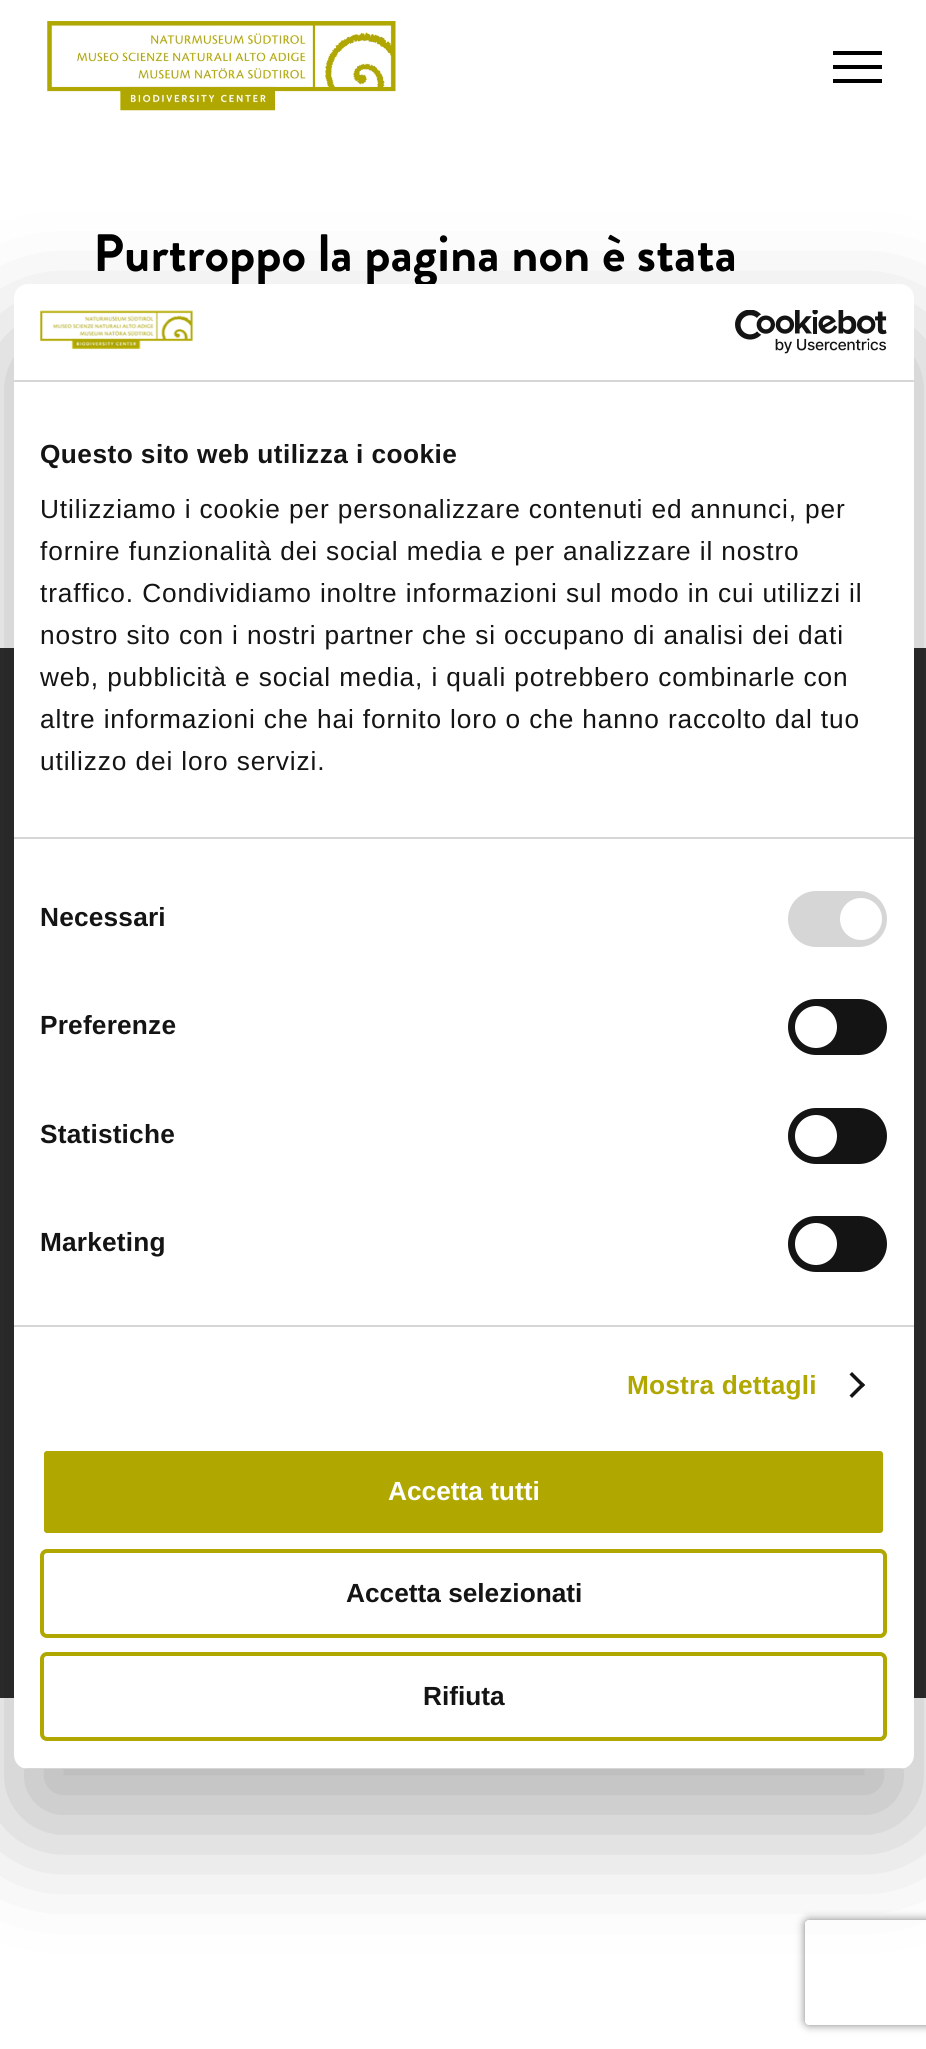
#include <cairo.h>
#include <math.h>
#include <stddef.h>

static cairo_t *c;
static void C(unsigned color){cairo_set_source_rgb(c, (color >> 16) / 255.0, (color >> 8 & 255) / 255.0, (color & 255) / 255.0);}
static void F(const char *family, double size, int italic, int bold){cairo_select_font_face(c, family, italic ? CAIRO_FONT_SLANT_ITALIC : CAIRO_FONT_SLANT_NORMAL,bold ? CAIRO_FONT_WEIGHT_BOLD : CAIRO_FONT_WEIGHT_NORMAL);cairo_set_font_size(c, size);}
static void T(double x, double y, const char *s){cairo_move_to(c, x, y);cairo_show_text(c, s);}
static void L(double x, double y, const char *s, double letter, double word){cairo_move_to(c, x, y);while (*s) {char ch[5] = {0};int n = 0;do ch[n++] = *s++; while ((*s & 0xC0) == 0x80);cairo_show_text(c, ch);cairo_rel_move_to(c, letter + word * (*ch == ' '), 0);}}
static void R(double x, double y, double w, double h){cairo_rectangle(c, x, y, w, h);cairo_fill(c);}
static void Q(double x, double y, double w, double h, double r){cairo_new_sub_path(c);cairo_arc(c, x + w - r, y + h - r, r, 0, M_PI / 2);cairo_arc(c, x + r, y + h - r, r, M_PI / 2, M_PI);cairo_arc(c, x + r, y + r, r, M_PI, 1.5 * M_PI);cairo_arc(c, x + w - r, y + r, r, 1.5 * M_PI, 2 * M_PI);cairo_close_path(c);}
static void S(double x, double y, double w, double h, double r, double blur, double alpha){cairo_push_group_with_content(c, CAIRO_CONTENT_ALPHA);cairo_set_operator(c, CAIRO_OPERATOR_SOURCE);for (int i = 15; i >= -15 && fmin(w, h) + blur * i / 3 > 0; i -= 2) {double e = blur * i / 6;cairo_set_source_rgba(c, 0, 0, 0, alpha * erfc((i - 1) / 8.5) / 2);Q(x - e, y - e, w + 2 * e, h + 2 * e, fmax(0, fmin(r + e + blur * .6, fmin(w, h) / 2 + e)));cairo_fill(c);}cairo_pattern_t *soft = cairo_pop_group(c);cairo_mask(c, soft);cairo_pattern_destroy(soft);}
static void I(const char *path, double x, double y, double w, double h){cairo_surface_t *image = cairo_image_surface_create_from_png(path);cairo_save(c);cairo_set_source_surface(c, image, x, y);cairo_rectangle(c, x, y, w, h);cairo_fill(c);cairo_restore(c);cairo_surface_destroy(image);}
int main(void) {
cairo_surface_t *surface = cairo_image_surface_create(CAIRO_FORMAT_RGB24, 926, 2049);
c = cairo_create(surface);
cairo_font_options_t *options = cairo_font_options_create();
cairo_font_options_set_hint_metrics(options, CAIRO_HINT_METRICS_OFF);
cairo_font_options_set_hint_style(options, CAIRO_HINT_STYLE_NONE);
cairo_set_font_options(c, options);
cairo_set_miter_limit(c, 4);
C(0xffffff);
cairo_paint(c);
I("1.png",47,21,349,90);
C(0x000000);
R(833,51,49,4);
R(833,65,49,4);
R(833,79,49,4);
F("Brandon Grotesque",52.5,0,1);
T(93,271,"Purtroppo la pagina non è stata");
C(0x2f2f2f);
R(0,648,926,1050);
C(0x000000);
S(14,340,900,1485,14,59.5,.3);
C(0xffffff);
Q(14,284,900,1485,14);
cairo_fill(c);
C(0xd6d6d6);
R(14,380,900,2);
I("2.png",40,310,153,40);
I("3.png",735,310,152,44);
R(14,837,900,2);
F("Liberation Sans",26.25,0,1);
C(0x141414);
L(40,463,"Questo sito web utilizza i cookie",.45,0);
F("Liberation Sans",26.25,0,0);
L(40,518,"Utilizziamo i cookie per personalizzare contenuti ed annunci, per",.88,0);
L(40,560,"fornire funzionalità dei social media e per analizzare il nostro",.88,0);
L(40,602,"traffico. Condividiamo inoltre informazioni sul modo in cui utilizzi il",.88,0);
L(40,644,"nostro sito con i nostri partner che si occupano di analisi dei dati",.88,0);
L(40,686,"web, pubblicità e social media, i quali potrebbero combinarle con",.88,0);
L(40,728,"altre informazioni che hai fornito loro o che hanno raccolto dal tuo",.88,0);
L(40,770,"utilizzo dei loro servizi.",.88,0);
C(0xd6d6d6);
R(14,1325,900,2);
F("Liberation Sans",26.25,0,1);
C(0x141414);
L(40,926,"Necessari",.2,0);
C(0xd6d6d6);
Q(788,891,99,56,28);
cairo_fill(c);
C(0xffffff);
cairo_arc(c,861,919,21,0,2 * M_PI);
cairo_fill(c);
C(0x141414);
L(40,1034,"Preferenze",.2,0);
Q(788,999,99,56,28);
cairo_fill(c);
C(0xffffff);
cairo_arc(c,816,1027,21,0,2 * M_PI);
cairo_fill(c);
C(0x141414);
L(40,1143,"Statistiche",.2,0);
Q(788,1108,99,56,28);
cairo_fill(c);
C(0xffffff);
cairo_arc(c,816,1136,21,0,2 * M_PI);
cairo_fill(c);
C(0x141414);
L(40,1251,"Marketing",.2,0);
Q(788,1216,99,56,28);
cairo_fill(c);
C(0xffffff);
cairo_arc(c,816,1244,21,0,2 * M_PI);
cairo_fill(c);
C(0xb0a700);
L(627,1394,"Mostra dettagli",.2,0);
C(0x141414);
cairo_new_path(c);
cairo_move_to(c,852,1372);
cairo_line_to(c,865,1385);
cairo_line_to(c,862.5,1387.5);
cairo_line_to(c,849.5,1374.5);
cairo_close_path(c);
cairo_fill(c);
cairo_new_path(c);
cairo_move_to(c,862.5,1382.5);
cairo_line_to(c,865,1385);
cairo_line_to(c,852,1398);
cairo_line_to(c,849.5,1395.5);
cairo_close_path(c);
cairo_fill(c);
cairo_save(c);
Q(14,284,900,1485,14);
cairo_clip(c);
C(0xd6d6d6);
R(23,1768,882,1);
cairo_restore(c);
C(0xb0a700);
Q(42,1449,843,86,5);
cairo_fill_preserve(c);
C(0xffffff);
cairo_set_line_width(c,4);
cairo_stroke(c);
T(388,1500,"Accetta tutti");
Q(42,1551,843,85,5);
C(0xb0a700);
cairo_stroke(c);
C(0x141414);
T(346,1602,"Accetta selezionati");
Q(42,1654,843,85,5);
C(0xb0a700);
cairo_stroke(c);
C(0x141414);
T(423,1705,"Rifiuta");
cairo_save(c);
cairo_set_fill_rule(c,CAIRO_FILL_RULE_EVEN_ODD);
cairo_new_path(c);
cairo_move_to(c,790,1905);
cairo_line_to(c,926,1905);
cairo_line_to(c,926,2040);
cairo_line_to(c,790,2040);
cairo_close_path(c);
cairo_move_to(c,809,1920);
cairo_line_to(c,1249,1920);
cairo_curve_to(c,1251,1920,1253,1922,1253,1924);
cairo_line_to(c,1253,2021);
cairo_curve_to(c,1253,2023,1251,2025,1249,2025);
cairo_line_to(c,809,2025);
cairo_curve_to(c,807,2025,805,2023,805,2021);
cairo_line_to(c,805,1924);
cairo_curve_to(c,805,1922,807,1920,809,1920);
cairo_close_path(c);
cairo_clip(c);
C(0x808080);
S(805,1920,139,105,4,4.5,1);
cairo_restore(c);
cairo_surface_write_to_png(surface, "o.png");
cairo_font_options_destroy(options);
cairo_destroy(c);
cairo_surface_destroy(surface);
return 0;
}
